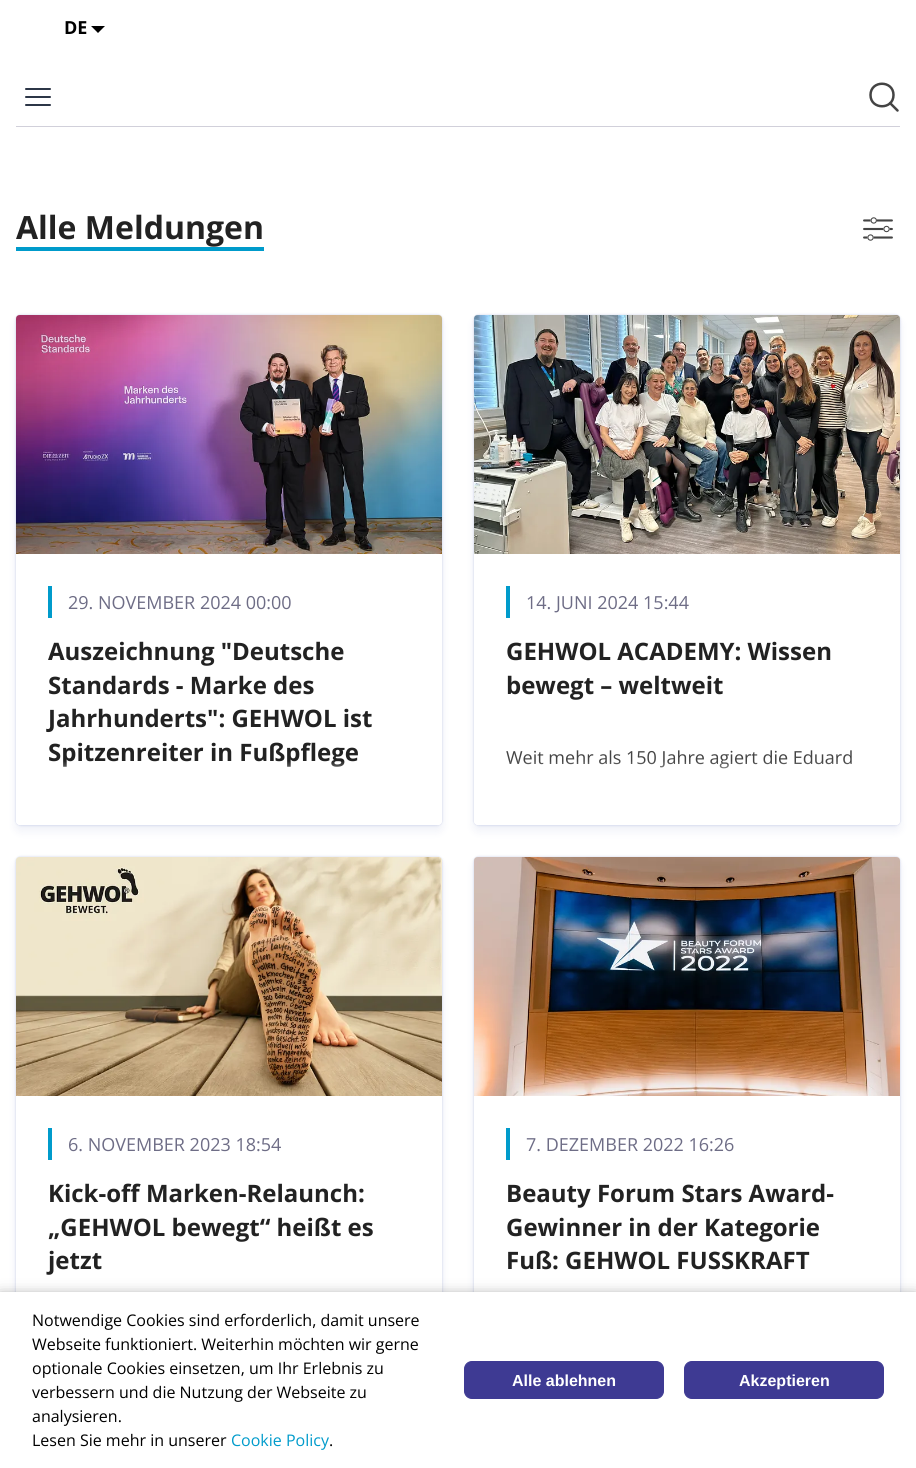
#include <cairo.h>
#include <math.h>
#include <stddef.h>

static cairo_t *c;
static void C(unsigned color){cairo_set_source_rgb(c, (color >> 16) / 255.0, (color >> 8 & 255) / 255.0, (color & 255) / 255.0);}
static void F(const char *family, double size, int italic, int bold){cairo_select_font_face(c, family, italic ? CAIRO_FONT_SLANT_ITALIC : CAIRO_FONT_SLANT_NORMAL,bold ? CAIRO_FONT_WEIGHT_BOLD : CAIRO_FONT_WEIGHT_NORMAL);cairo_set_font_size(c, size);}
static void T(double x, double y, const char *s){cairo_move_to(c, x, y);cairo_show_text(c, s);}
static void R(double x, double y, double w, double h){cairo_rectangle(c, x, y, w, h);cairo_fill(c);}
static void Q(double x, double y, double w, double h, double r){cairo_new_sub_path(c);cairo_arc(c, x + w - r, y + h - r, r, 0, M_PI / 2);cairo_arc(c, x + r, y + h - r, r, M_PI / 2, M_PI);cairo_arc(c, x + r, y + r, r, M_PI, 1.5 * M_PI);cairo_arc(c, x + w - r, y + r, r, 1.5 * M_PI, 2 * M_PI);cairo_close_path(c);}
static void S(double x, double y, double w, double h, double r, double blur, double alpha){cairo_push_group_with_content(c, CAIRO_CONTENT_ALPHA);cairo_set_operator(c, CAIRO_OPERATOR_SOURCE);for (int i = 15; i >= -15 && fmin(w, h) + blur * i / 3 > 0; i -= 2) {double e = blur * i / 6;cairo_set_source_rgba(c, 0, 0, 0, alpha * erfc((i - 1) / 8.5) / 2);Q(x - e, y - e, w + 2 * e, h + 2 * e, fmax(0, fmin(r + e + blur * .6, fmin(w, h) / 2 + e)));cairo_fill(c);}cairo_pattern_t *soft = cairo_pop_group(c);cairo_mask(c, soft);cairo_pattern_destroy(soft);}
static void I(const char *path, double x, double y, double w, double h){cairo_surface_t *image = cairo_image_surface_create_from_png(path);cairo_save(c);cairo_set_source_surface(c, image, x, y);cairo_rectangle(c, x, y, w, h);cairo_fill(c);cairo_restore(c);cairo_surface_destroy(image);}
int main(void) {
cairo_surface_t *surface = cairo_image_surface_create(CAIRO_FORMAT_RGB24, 916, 1468);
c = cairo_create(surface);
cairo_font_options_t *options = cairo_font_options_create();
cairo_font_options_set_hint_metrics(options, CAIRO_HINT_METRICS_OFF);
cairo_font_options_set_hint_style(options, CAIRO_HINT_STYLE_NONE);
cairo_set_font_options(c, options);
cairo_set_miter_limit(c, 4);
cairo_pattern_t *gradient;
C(0xffffff);
cairo_paint(c);
F("Open Sans",18,0,1);
C(0x000000);
T(64,34,"DE");
cairo_new_path(c);
cairo_move_to(c,91,26);
cairo_line_to(c,105,26);
cairo_line_to(c,98,33);
cairo_close_path(c);
cairo_fill(c);
C(0xd1d0da);
R(16,126,884,1);
cairo_new_path(c);
cairo_move_to(c,26,97);
cairo_line_to(c,50,97);
cairo_move_to(c,26,89);
cairo_line_to(c,50,89);
cairo_move_to(c,26,105);
cairo_line_to(c,50,105);
C(0x2c3647);
cairo_set_line_cap(c,CAIRO_LINE_CAP_ROUND);
cairo_set_line_join(c,CAIRO_LINE_JOIN_ROUND);
cairo_stroke(c);
cairo_new_path(c);
cairo_move_to(c,893.5,95);
cairo_curve_to(c,893.5,110,870.5,110,870.5,95);
cairo_curve_to(c,870.5,80,893.5,80,893.5,95);
cairo_close_path(c);
cairo_move_to(c,897.5,110.5);
cairo_line_to(c,890,103);
C(0x444444);
cairo_set_line_width(c,2.5);
cairo_set_line_join(c,CAIRO_LINE_JOIN_MITER);
cairo_stroke(c);
C(0x009bcb);
R(16,247,248,4);
F("Open Sans",32,0,1);
C(0x222222);
T(16,239,"Alle Meldungen");
I("1.png",863,217,30,24);
C(0x3149a4);
S(16,315,426,510,4,1,.14);
S(16,315,426,510,4,1.5,.1);
S(16,321,426,510,4,5,.08);
C(0xffffff);
Q(16,315,426,510,4);
cairo_fill(c);
I("2.png",16,315,426,4);
I("3.png",16,315,426,239);
C(0x009bcb);
R(48,586,4,32);
F("Open Sans",18,0,0);
C(0x6e6d86);
T(68,609,"29. NOVEMBER 2024 00:00");
F("Open Sans",24,0,1);
C(0x222222);
T(48,660,"Auszeichnung \"Deutsche");
T(48,694,"Standards - Marke des");
T(48,727,"Jahrhunderts\": GEHWOL ist");
T(48,761,"Spitzenreiter in Fußpflege");
gradient = cairo_pattern_create_linear(229,761,229,825);
cairo_pattern_add_color_stop_rgba(gradient,0,1,1,1,0);
cairo_pattern_add_color_stop_rgba(gradient,.25,1,1,1,.7);
cairo_pattern_add_color_stop_rgba(gradient,.5,1,1,1,1);
cairo_set_source(c,gradient);
cairo_pattern_destroy(gradient);
cairo_new_path(c);
cairo_move_to(c,16,761);
cairo_line_to(c,442,761);
cairo_line_to(c,442,821);
cairo_curve_to(c,442,823,440,825,438,825);
cairo_line_to(c,20,825);
cairo_curve_to(c,18,825,16,823,16,821);
cairo_close_path(c);
cairo_fill(c);
C(0x3149a4);
S(474,315,426,510,4,1,.14);
S(474,315,426,510,4,1.5,.1);
S(474,321,426,510,4,5,.08);
C(0xffffff);
Q(474,315,426,510,4);
cairo_fill(c);
I("2.png",474,315,426,4);
I("4.png",474,315,426,239);
C(0x009bcb);
R(506,586,4,32);
F("Open Sans",18,0,0);
C(0x6e6d86);
T(526,609,"14. JUNI 2024 15:44");
F("Open Sans",24,0,1);
C(0x222222);
T(506,660,"GEHWOL ACADEMY: Wissen");
T(506,694,"bewegt – weltweit");
F("Open Sans",18,0,0);
C(0x444444);
T(506,764,"Weit mehr als 150 Jahre agiert die Eduard");
gradient = cairo_pattern_create_linear(687,761,687,825);
cairo_pattern_add_color_stop_rgba(gradient,0,1,1,1,0);
cairo_pattern_add_color_stop_rgba(gradient,.25,1,1,1,.7);
cairo_pattern_add_color_stop_rgba(gradient,.5,1,1,1,1);
cairo_set_source(c,gradient);
cairo_pattern_destroy(gradient);
cairo_new_path(c);
cairo_move_to(c,474,761);
cairo_line_to(c,900,761);
cairo_line_to(c,900,821);
cairo_curve_to(c,900,823,898,825,896,825);
cairo_line_to(c,478,825);
cairo_curve_to(c,476,825,474,823,474,821);
cairo_close_path(c);
cairo_fill(c);
C(0x3149a4);
S(16,857,426,510,4,1,.14);
S(16,857,426,510,4,1.5,.1);
S(16,863,426,510,4,5,.08);
C(0xffffff);
Q(16,857,426,510,4);
cairo_fill(c);
I("2.png",16,857,426,4);
I("5.png",16,857,426,239);
C(0x009bcb);
R(48,1128,4,32);
C(0x6e6d86);
T(68,1151,"6. NOVEMBER 2023 18:54");
F("Open Sans",24,0,1);
C(0x222222);
T(48,1202,"Kick-off Marken-Relaunch:");
T(48,1236,"„GEHWOL bewegt“ heißt es");
T(48,1269,"jetzt");
C(0x3149a4);
S(474,857,426,510,4,1,.14);
S(474,857,426,510,4,1.5,.1);
S(474,863,426,510,4,5,.08);
C(0xffffff);
Q(474,857,426,510,4);
cairo_fill(c);
I("2.png",474,857,426,4);
I("6.png",474,857,426,239);
C(0x009bcb);
R(506,1128,4,32);
F("Open Sans",18,0,0);
C(0x6e6d86);
T(526,1151,"7. DEZEMBER 2022 16:26");
F("Open Sans",24,0,1);
C(0x222222);
T(506,1202,"Beauty Forum Stars Award-");
T(506,1236,"Gewinner in der Kategorie");
T(506,1269,"Fuß: GEHWOL FUSSKRAFT");
C(0x000000);
S(0,1297,916,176,0,7.5,.5);
C(0xffffff);
R(0,1292,916,176);
F("Open Sans",16,0,0);
C(0x000000);
T(32,1326,"Notwendige Cookies sind erforderlich, damit unsere");
T(32,1350,"Webseite funktioniert. Weiterhin möchten wir gerne");
T(32,1374,"optionale Cookies einsetzen, um Ihr Erlebnis zu");
T(32,1398,"verbessern und die Nutzung der Webseite zu");
T(32,1422,"analysieren.");
T(32,1446,"Lesen Sie mehr in unserer");
C(0x009bcb);
T(231,1446,"Cookie Policy");
C(0x000000);
T(329,1446,".");
C(0x3e3a93);
Q(464.5,1361.5,199,37,7.5);
cairo_fill_preserve(c);
cairo_set_line_width(c,1);
cairo_set_line_cap(c,CAIRO_LINE_CAP_BUTT);
cairo_stroke(c);
F("Liberation Sans",16,0,1);
C(0xffffff);
T(512,1386,"Alle ablehnen");
C(0x3e3a93);
Q(684.5,1361.5,199,37,7.5);
cairo_fill_preserve(c);
cairo_stroke(c);
C(0xffffff);
T(739,1386,"Akzeptieren");
cairo_surface_write_to_png(surface, "o.png");
cairo_font_options_destroy(options);
cairo_destroy(c);
cairo_surface_destroy(surface);
return 0;
}
